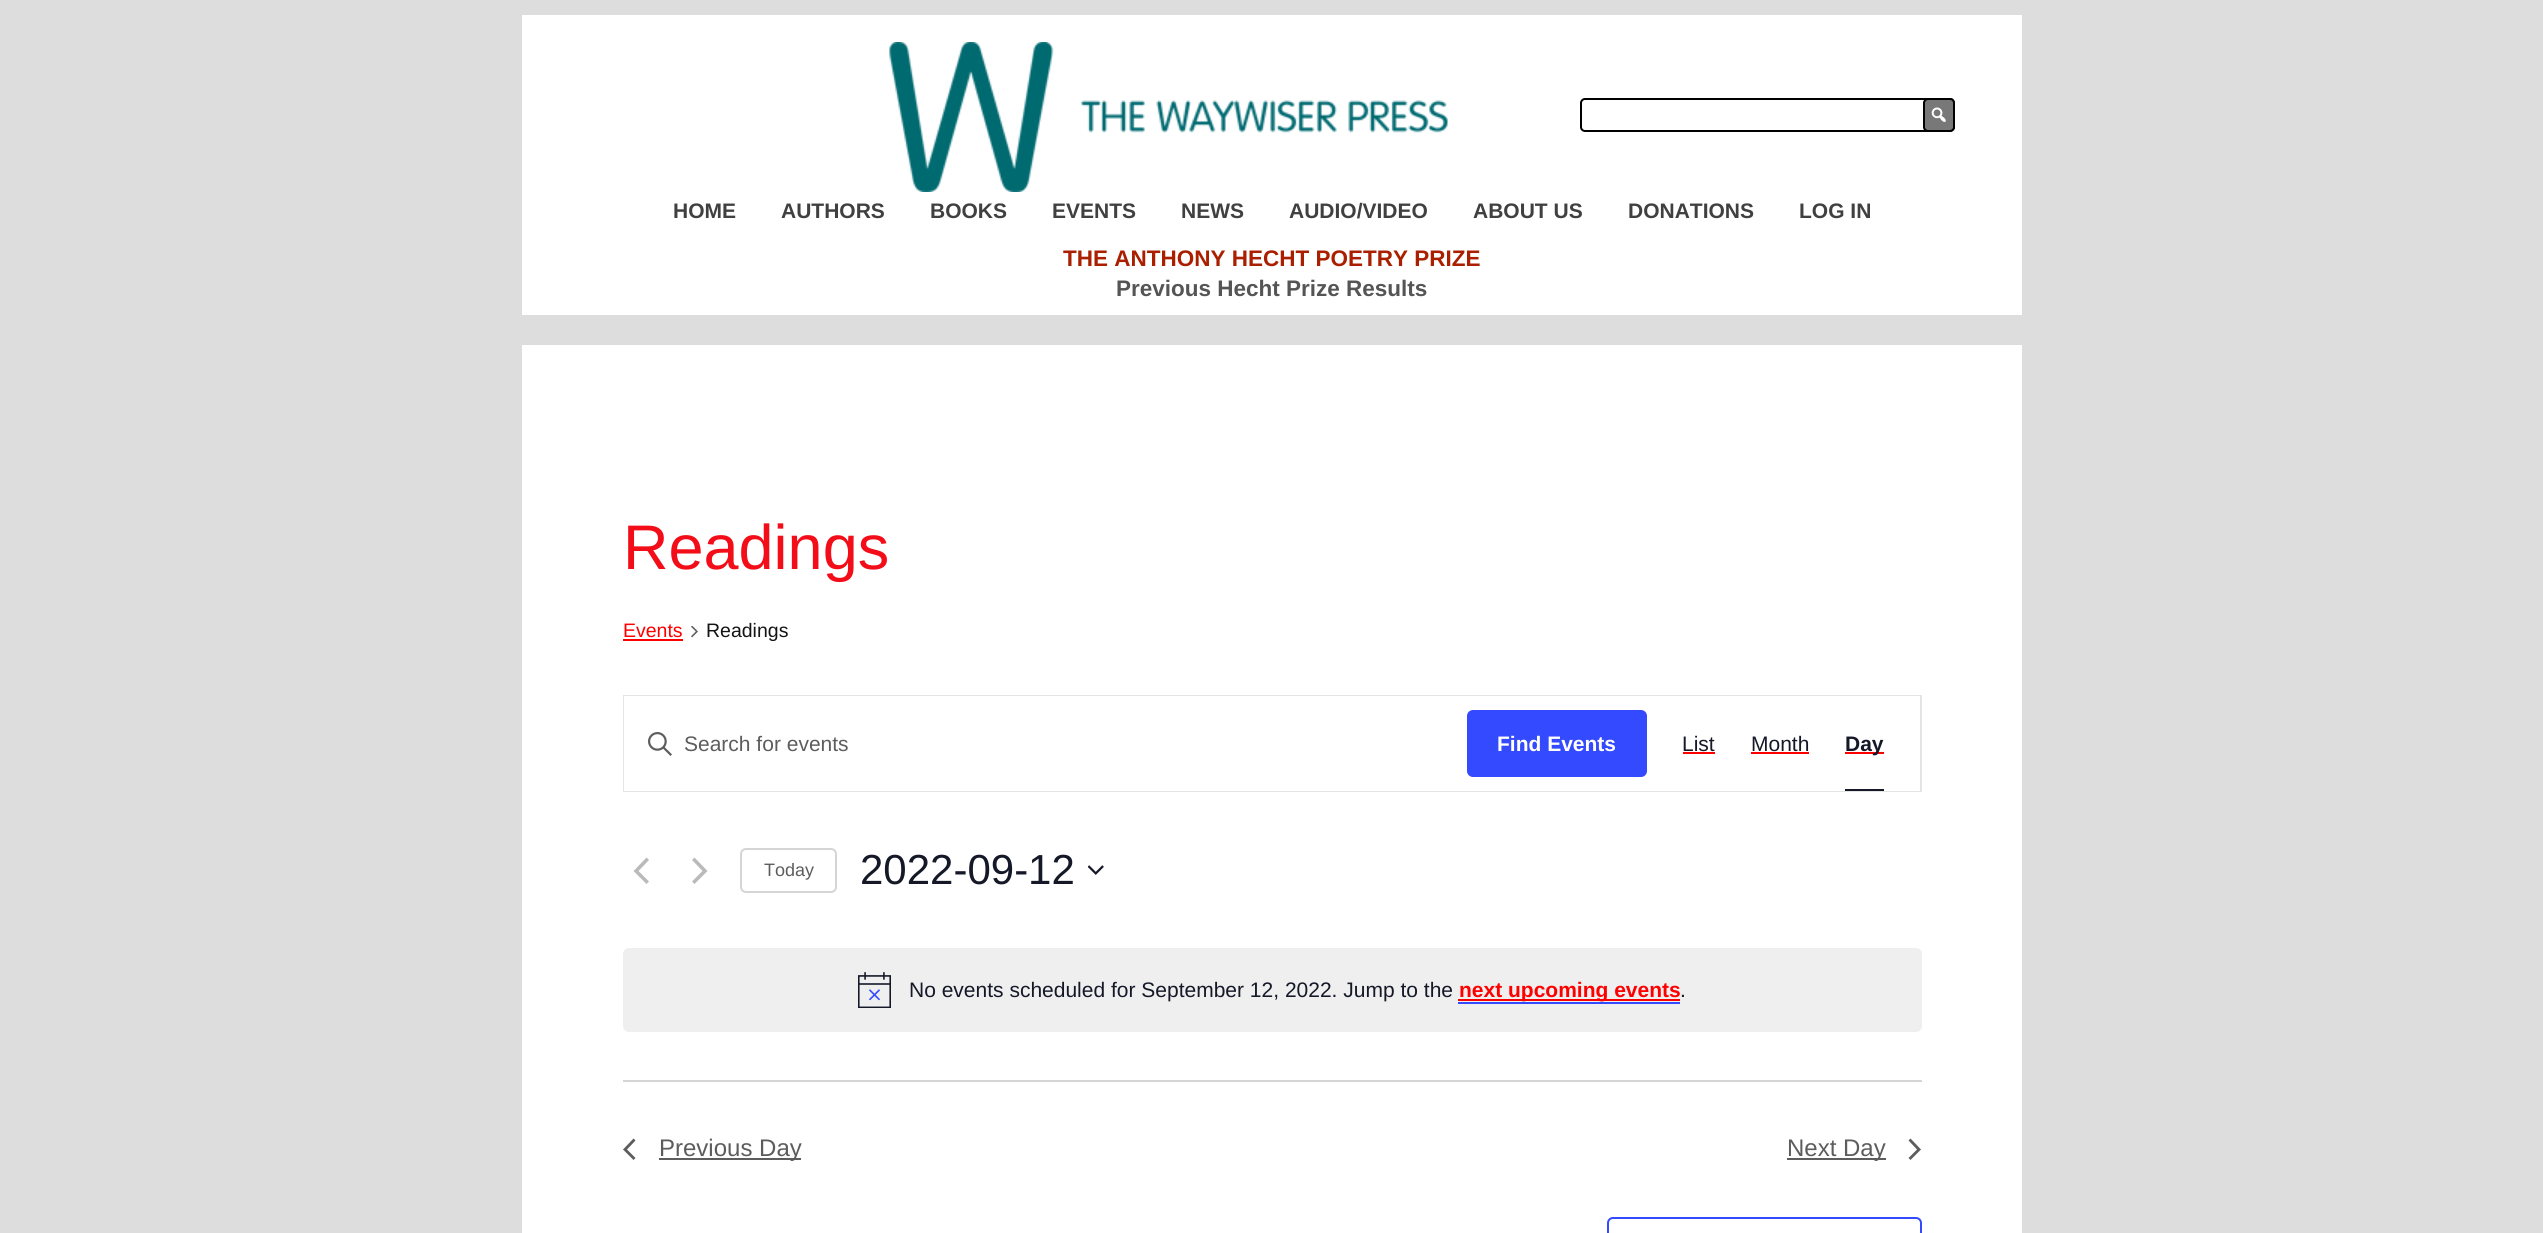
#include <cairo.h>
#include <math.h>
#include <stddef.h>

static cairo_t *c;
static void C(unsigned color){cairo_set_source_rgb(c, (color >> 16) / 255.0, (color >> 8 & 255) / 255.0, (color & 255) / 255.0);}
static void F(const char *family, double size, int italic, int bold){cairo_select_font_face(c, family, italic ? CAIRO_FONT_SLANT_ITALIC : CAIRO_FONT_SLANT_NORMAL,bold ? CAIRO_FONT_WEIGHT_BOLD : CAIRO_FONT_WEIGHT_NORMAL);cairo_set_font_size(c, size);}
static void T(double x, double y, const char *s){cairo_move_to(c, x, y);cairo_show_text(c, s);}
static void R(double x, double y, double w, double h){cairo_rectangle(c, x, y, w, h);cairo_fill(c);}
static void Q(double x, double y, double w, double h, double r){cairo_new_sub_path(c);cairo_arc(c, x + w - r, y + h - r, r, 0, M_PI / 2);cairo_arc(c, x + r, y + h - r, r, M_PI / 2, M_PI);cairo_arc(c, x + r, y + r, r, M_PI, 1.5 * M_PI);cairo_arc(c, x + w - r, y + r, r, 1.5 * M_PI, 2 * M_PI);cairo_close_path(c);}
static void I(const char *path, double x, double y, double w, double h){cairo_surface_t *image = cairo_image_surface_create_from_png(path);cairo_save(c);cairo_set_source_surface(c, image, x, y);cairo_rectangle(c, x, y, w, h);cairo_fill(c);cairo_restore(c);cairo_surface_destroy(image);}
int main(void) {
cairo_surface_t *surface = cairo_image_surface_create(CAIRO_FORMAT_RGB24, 2543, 1233);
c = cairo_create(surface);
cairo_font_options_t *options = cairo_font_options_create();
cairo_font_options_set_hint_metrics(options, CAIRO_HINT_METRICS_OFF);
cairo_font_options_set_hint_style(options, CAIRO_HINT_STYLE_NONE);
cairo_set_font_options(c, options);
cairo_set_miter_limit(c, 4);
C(0xdddddd);
cairo_paint(c);
C(0xffffff);
R(522,15,1500,300);
I("1.png",889,42,559,150);
Q(1581,99,373,32,4);
C(0x000000);
cairo_stroke(c);
C(0x787878);
Q(1924,99,30,32,4);
cairo_fill_preserve(c);
C(0x000000);
cairo_stroke(c);
I("2.png",1931,107,15,15);
F("Liberation Sans",21,0,1);
C(0x404040);
T(673,218,"HOME");
T(781,218,"AUTHORS");
T(930,218,"BOOKS");
T(1052,218,"EVENTS");
T(1181,218,"NEWS");
T(1289,218,"AUDIO/VIDEO");
T(1473,218,"ABOUT US");
T(1628,218,"DONATIONS");
T(1799,218,"LOG IN");
F("Liberation Sans",22.5,0,1);
C(0xaa1f00);
T(1063,266,"THE ANTHONY HECHT POETRY PRIZE");
C(0x555555);
T(1116,296,"Previous Hecht Prize Results");
C(0xffffff);
R(522,345,1500,888);
F("Liberation Sans",63,0,0);
C(0xf20d18);
T(623,569,"Readings");
F("Liberation Sans",19.5,0,0);
C(0xff0000);
T(623,637,"Events");
R(623,639,60,2);
I("3.png",691,626,7,12);
C(0x141414);
T(706,637,"Readings");
cairo_rectangle(c,624,696,1297,95);
C(0xe4e4e4);
cairo_stroke(c);
C(0xffffff);
R(624,696,1296,95);
I("4.png",648,732,24,24);
F("Liberation Sans",21,0,0);
C(0x5d5d5d);
T(684,751,"Search for events");
C(0x334aff);
Q(1467,710,180,67,6);
cairo_fill(c);
F("Liberation Sans",21,0,1);
C(0xffffff);
T(1497,751,"Find Events");
F("Liberation Sans",21,0,0);
C(0x141827);
T(1682,751,"List");
C(0xff0000);
R(1683,752,32,2);
C(0x141827);
T(1751,751,"Month");
C(0xff0000);
R(1751,752,58,2);
R(1845,752,39,2);
F("Liberation Sans",21,0,1);
C(0x141827);
T(1845,751,"Day");
R(1845,789,39,2);
C(0xbababa);
cairo_new_path(c);
cairo_move_to(c,649,881.5);
cairo_line_to(c,646.5,884);
cairo_line_to(c,633.5,871);
cairo_line_to(c,646.5,857.5);
cairo_line_to(c,649,860);
cairo_line_to(c,638.5,871);
cairo_close_path(c);
cairo_fill(c);
cairo_new_path(c);
cairo_move_to(c,692,860);
cairo_line_to(c,694.5,857.5);
cairo_line_to(c,707.5,871);
cairo_line_to(c,694.5,884);
cairo_line_to(c,692,881.5);
cairo_line_to(c,702.5,871);
cairo_close_path(c);
cairo_fill(c);
Q(741,849,95,43,5);
C(0xd5d5d5);
cairo_stroke(c);
F("Liberation Sans",18,0,0);
C(0x5d5d5d);
T(764,876,"Today");
F("Liberation Sans",42,0,0);
C(0x141827);
T(860,884,"2022-09-12");
I("5.png",1088,865,16,10);
C(0xefeff0);
Q(623,948,1299,84,6);
cairo_fill(c);
I("6.png",858,972,33,36);
F("Liberation Sans",21,0,0);
C(0x141827);
T(909,997,"No events scheduled for September 12, 2022. Jump to the");
C(0xff0000);
R(1458,999,222,2);
F("Liberation Sans",21,0,1);
T(1459,997,"next upcoming events");
C(0x334aff);
R(1458,1002,222,2);
F("Liberation Sans",21,0,0);
C(0x141827);
T(1680,997,".");
C(0xd5d5d5);
R(623,1080,1299,2);
C(0x5d5d5d);
cairo_new_path(c);
cairo_move_to(c,635.5,1158);
cairo_line_to(c,633.5,1160);
cairo_line_to(c,623,1149.5);
cairo_line_to(c,633.5,1138.5);
cairo_line_to(c,635.5,1140.5);
cairo_line_to(c,627,1149.5);
cairo_close_path(c);
cairo_fill(c);
R(659,1158,142,2);
F("Liberation Sans",24,0,0);
T(659,1156,"Previous Day");
R(1787,1158,99,2);
T(1787,1156,"Next Day");
cairo_new_path(c);
cairo_move_to(c,1908.5,1140.5);
cairo_line_to(c,1910.5,1138.5);
cairo_line_to(c,1921,1149.5);
cairo_line_to(c,1910.5,1160);
cairo_line_to(c,1908.5,1158);
cairo_line_to(c,1917,1149.5);
cairo_close_path(c);
cairo_fill(c);
Q(1608,1218,313,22,5);
C(0x334aff);
cairo_stroke(c);
cairo_surface_write_to_png(surface, "o.png");
cairo_font_options_destroy(options);
cairo_destroy(c);
cairo_surface_destroy(surface);
return 0;
}
